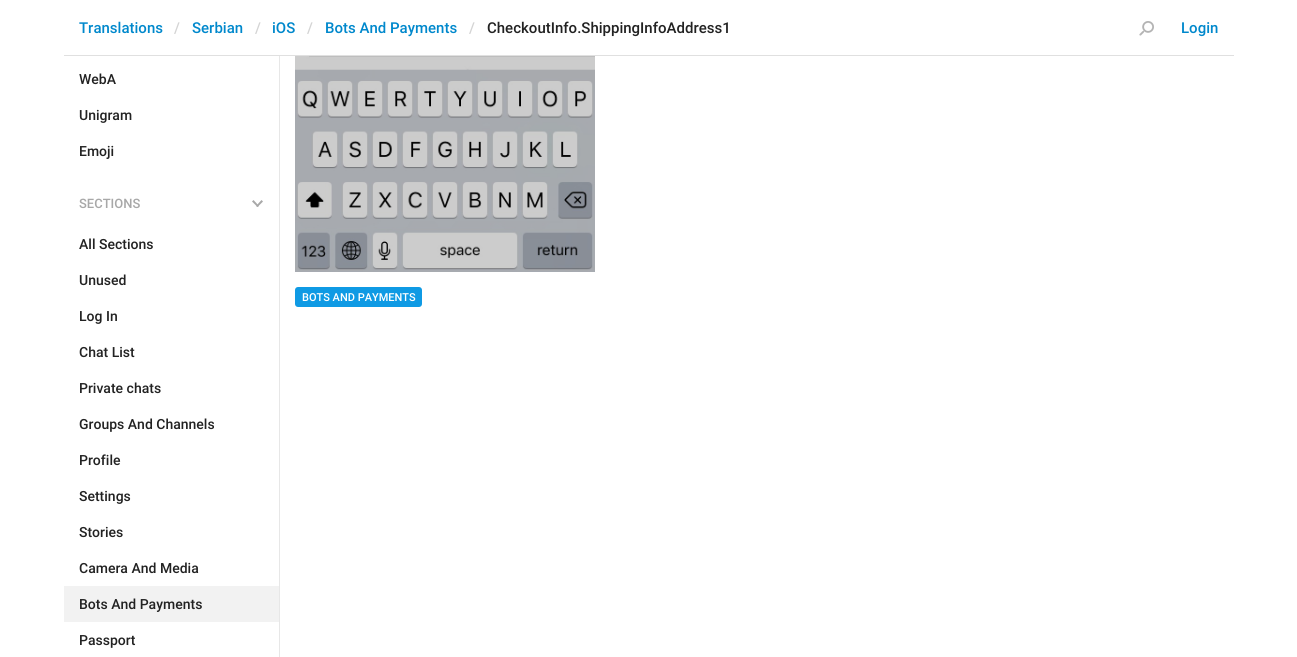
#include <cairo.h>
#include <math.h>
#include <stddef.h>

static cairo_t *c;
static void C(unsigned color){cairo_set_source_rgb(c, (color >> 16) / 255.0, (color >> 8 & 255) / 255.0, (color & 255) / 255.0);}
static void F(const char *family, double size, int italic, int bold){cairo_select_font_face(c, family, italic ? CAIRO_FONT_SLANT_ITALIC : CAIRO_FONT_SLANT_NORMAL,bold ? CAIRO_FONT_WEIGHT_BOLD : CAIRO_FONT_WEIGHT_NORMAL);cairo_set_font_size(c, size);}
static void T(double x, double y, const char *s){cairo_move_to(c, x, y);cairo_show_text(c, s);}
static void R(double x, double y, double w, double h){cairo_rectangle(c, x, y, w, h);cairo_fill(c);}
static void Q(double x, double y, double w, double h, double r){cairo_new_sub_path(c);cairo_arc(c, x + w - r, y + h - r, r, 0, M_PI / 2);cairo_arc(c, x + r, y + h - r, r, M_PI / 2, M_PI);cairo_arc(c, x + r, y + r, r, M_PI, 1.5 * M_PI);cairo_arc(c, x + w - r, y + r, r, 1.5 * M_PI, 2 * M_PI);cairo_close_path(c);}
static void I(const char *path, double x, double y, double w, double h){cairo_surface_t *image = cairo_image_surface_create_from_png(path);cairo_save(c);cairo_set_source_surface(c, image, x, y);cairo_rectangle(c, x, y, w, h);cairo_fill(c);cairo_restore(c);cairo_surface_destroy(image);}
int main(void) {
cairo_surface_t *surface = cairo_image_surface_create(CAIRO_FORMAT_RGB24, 1297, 657);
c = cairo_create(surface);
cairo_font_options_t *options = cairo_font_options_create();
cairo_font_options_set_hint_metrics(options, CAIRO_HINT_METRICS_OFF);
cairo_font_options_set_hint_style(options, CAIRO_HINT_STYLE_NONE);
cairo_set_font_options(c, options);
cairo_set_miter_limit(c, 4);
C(0xffffff);
cairo_paint(c);
C(0xe0e0e0);
R(64,55,1170,1);
F("Roboto Medium",15,0,0);
C(0x0088cc);
T(79,33,"Translations");
C(0xd4d4d4);
T(174,33,"/");
C(0x0088cc);
T(192,33,"Serbian");
C(0xd4d4d4);
T(255,33,"/");
C(0x0088cc);
T(272,33,"iOS");
C(0xd4d4d4);
T(307,33,"/");
C(0x0088cc);
T(325,33,"Bots And Payments");
C(0xd4d4d4);
T(469,33,"/");
C(0x222222);
T(487,33,"CheckoutInfo.ShippingInfoAddress1");
I("1.png",1139,21,15,15);
C(0x0088cc);
T(1181,33,"Login");
F("Roboto Medium",14,0,0);
C(0x222222);
T(79,84,"WebA");
T(79,120,"Unigram");
T(79,156,"Emoji");
F("Roboto Medium",13,0,0);
C(0xa8a8a8);
T(79,208,"SECTIONS");
cairo_new_path(c);
cairo_move_to(c,257.5,207);
cairo_line_to(c,252,201.5);
cairo_line_to(c,253.5,200);
cairo_line_to(c,259,206);
cairo_close_path(c);
cairo_fill(c);
cairo_new_path(c);
cairo_move_to(c,257.5,207);
cairo_line_to(c,256,206);
cairo_line_to(c,261.5,200);
cairo_line_to(c,263,201.5);
cairo_close_path(c);
cairo_fill(c);
F("Roboto Medium",14,0,0);
C(0x222222);
T(79,249,"All Sections");
T(79,285,"Unused");
T(79,321,"Log In");
T(79,357,"Chat List");
T(79,393,"Private chats");
T(79,429,"Groups And Channels");
T(79,465,"Profile");
T(79,501,"Settings");
T(79,537,"Stories");
T(79,573,"Camera And Media");
C(0xf2f2f2);
R(64,586,215,36);
C(0x222222);
T(79,609,"Bots And Payments");
T(79,645,"Passport");
C(0xe7e7e7);
R(279,56,1,601);
I("2.png",295,56,300,216);
C(0x0f9ae4);
Q(295,287,127,20,3);
cairo_fill(c);
F("Roboto Medium",11,0,0);
C(0xffffff);
T(302,301,"BOTS AND PAYMENTS");
cairo_surface_write_to_png(surface, "o.png");
cairo_font_options_destroy(options);
cairo_destroy(c);
cairo_surface_destroy(surface);
return 0;
}
